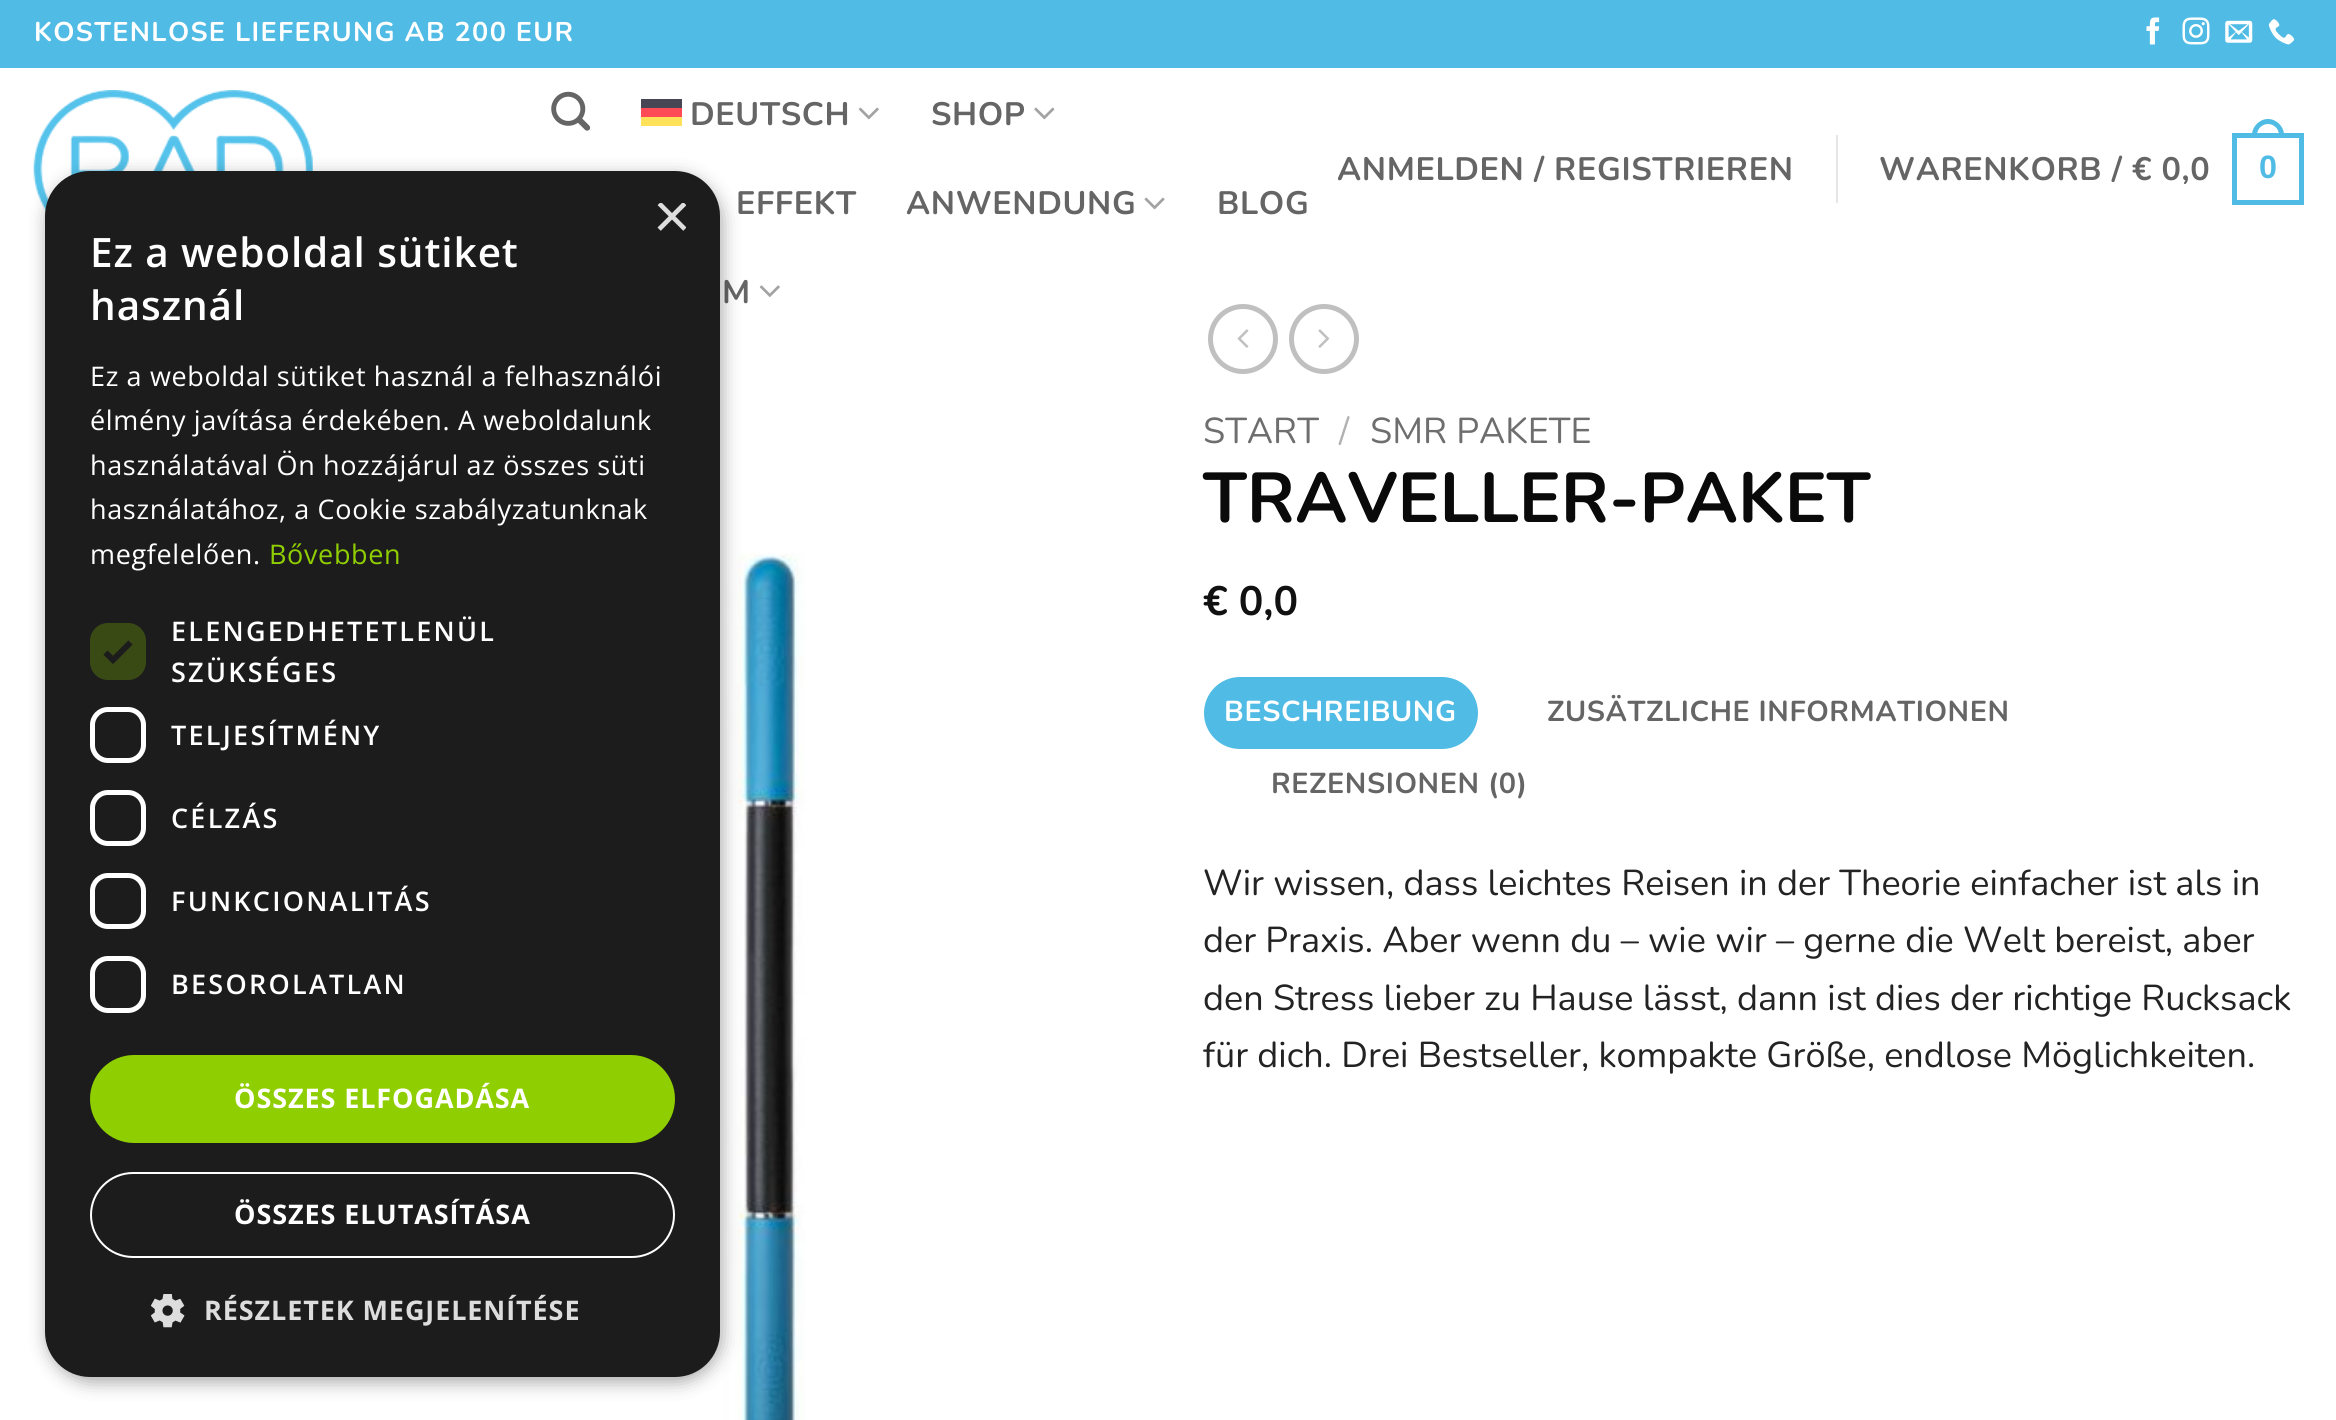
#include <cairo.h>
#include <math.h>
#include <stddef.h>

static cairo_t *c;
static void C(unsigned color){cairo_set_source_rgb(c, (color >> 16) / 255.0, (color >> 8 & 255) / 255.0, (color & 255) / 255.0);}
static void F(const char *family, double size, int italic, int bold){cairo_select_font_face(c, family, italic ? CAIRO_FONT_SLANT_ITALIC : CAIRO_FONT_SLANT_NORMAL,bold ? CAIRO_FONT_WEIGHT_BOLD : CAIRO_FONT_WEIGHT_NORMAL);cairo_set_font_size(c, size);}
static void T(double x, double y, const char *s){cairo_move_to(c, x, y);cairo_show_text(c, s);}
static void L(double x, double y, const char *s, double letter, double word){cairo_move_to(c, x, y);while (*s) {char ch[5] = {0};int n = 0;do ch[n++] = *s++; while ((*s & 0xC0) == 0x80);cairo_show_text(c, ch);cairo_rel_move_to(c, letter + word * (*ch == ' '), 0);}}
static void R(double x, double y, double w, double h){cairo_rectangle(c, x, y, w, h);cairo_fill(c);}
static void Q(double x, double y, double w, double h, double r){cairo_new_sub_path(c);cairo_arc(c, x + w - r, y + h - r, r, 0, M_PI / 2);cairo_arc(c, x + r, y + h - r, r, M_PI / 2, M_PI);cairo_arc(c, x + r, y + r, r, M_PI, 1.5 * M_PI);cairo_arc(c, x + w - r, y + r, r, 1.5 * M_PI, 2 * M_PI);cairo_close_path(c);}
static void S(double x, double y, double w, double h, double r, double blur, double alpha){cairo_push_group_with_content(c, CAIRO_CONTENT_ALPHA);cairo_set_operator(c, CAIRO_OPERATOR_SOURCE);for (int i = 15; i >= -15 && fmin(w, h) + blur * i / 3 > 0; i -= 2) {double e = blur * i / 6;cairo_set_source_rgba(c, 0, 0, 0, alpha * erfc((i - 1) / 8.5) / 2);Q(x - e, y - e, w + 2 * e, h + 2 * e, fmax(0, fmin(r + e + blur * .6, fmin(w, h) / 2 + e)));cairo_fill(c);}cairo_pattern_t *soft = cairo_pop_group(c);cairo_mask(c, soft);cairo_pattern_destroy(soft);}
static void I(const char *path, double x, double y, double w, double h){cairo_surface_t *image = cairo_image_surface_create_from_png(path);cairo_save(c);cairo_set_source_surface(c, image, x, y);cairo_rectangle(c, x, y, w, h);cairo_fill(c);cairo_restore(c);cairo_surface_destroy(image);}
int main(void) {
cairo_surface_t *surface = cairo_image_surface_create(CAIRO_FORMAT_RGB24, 2336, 1420);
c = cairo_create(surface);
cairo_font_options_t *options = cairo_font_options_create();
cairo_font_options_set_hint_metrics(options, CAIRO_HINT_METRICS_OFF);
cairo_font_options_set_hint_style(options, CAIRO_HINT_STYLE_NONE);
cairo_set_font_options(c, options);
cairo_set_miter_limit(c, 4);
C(0xffffff);
cairo_paint(c);
C(0x50bbe4);
R(0,0,2336,68);
F("Nunito",27,0,1);
C(0xffffff);
L(34,41,"KOSTENLOSE LIEFERUNG AB 200 EUR",1.35,0);
I("1.png",2146,17,14,28);
I("2.png",2182,17,28,28);
I("3.png",2225,20,28,23);
I("4.png",2268,19,27,26);
I("5.png",33,90,280,122);
I("6.png",551,91,40,40);
C(0xff4b55);
R(641,108,41,9);
C(0xffe15a);
R(641,117,41,9);
C(0x464655);
R(641,99,41,9);
F("Nunito",32.4,0,1);
C(0x656565);
L(690,125,"DEUTSCH",.65,0);
I("7.png",858,107,21,13);
L(931,125,"SHOP",.65,0);
I("8.png",1034,107,21,13);
L(736,214,"EFFEKT",.65,0);
L(906,214,"ANWENDUNG",.65,0);
I("9.png",1144,197,21,13);
L(1217,214,"BLOG",.65,0);
L(722,303,"M",.65,0);
I("10.png",759,285,21,12);
L(1337,180,"ANMELDEN / REGISTRIEREN",.65,0);
C(0xe6e6e6);
R(1836,135,2,68);
C(0x656565);
L(1879,180,"WARENKORB / € 0,0",.65,0);
cairo_rectangle(c,2234.5,135.5,67,67);
C(0x50bbe4);
cairo_set_line_width(c,5);
cairo_stroke(c);
cairo_set_fill_rule(c,CAIRO_FILL_RULE_EVEN_ODD);
cairo_new_path(c);
cairo_move_to(c,2268,119);
cairo_curve_to(c,2276.5,119,2284,126.5,2284,135);
cairo_line_to(c,2284,137);
cairo_line_to(c,2252,137);
cairo_line_to(c,2252,135);
cairo_curve_to(c,2252,126.5,2259.5,119,2268,119);
cairo_close_path(c);
cairo_move_to(c,2268,124);
cairo_curve_to(c,2274,124,2279,129,2279,135);
cairo_line_to(c,2279,137);
cairo_line_to(c,2257,137);
cairo_line_to(c,2257,135);
cairo_curve_to(c,2257,129,2262,124,2268,124);
cairo_close_path(c);
cairo_fill(c);
F("Liberation Sans",32.4,0,1);
L(2259,178,"0",.65,0);
I("11.png",357,553,448,867);
cairo_arc(c,1243,339,32.5,0,2 * M_PI);
C(0xc0c0c0);
cairo_stroke(c);
I("12.png",1237,329,12,19);
cairo_arc(c,1324,339,32.5,0,2 * M_PI);
cairo_stroke(c);
I("13.png",1318,329,12,19);
F("Nunito",36,0,0);
C(0x6e6e6e);
T(1203,443,"START");
C(0xb2b2b2);
T(1339,443,"/");
C(0x6e6e6e);
T(1370,443,"SMR PAKETE");
F("Nunito",70.4,0,1);
C(0x0a0a0a);
T(1203,522,"TRAVELLER-PAKET");
F("Nunito",41,0,1);
C(0x111111);
T(1203,615,"€ 0,0");
C(0x50bbe4);
Q(1204,677,274,72,36);
cairo_fill(c);
F("Nunito",28.75,0,1);
C(0xffffff);
L(1224,721,"BESCHREIBUNG",.6,0);
C(0x656565);
L(1547,721,"ZUSÄTZLICHE INFORMATIONEN",.6,0);
L(1271,793,"REZENSIONEN (0)",.6,0);
F("Nunito",36,0,0);
C(0x232323);
T(1203,895,"Wir wissen, dass leichtes Reisen in der Theorie einfacher ist als in");
T(1203,952,"der Praxis. Aber wenn du – wie wir – gerne die Welt bereist, aber");
T(1203,1010,"den Stress lieber zu Hause lässt, dann ist dies der richtige Rucksack");
T(1203,1067,"für dich. Drei Bestseller, kompakte Größe, endlose Möglichkeiten.");
C(0x000000);
S(47,176,675,1206,45,9,.35);
C(0x1c1c1c);
Q(45,171,675,1206,45);
cairo_fill(c);
cairo_save(c);
cairo_set_fill_rule(c,CAIRO_FILL_RULE_WINDING);
cairo_rectangle(c,653,203,33,33);
cairo_clip(c);
F("Liberation Sans",65,0,0);
C(0xdddddd);
T(653,238,"×");
cairo_restore(c);
F("Open Sans SemiBold",40.5,0,0);
C(0xffffff);
L(90,267,"Ez a weboldal sütiket",.9,0);
L(90,320,"használ",.9,0);
F("Open Sans",27,0,0);
L(90,386,"Ez a weboldal sütiket használ a felhasználói",.65,0);
L(90,430,"élmény javítása érdekében. A weboldalunk",.65,0);
L(90,475,"használatával Ön hozzájárul az összes süti",.65,0);
L(90,519,"használatához, a Cookie szabályzatunknak",.65,0);
L(90,564,"megfelelően.",.65,0);
C(0x8fce00);
L(269,564,"Bővebben",.65,0);
C(0x3a4a15);
Q(90,623,56,57,18);
cairo_fill(c);
cairo_new_path(c);
cairo_move_to(c,105.5,652.5);
cairo_line_to(c,113,660);
cairo_line_to(c,130.5,642.5);
C(0x1c1c1c);
cairo_set_line_width(c,5.9);
cairo_stroke(c);
F("Open Sans SemiBold",27,0,0);
C(0xffffff);
L(171,641,"ELENGEDHETETLENÜL",2.25,0);
L(171,682,"SZÜKSÉGES",2.25,0);
Q(92.5,709.5,51,51,15.5);
cairo_set_line_width(c,5);
cairo_stroke(c);
L(171,745,"TELJESÍTMÉNY",2.25,0);
Q(92.5,792.5,51,51,15.5);
cairo_stroke(c);
L(171,828,"CÉLZÁS",2.25,0);
Q(92.5,875.5,51,51,15.5);
cairo_stroke(c);
L(171,911,"FUNKCIONALITÁS",2.25,0);
Q(92.5,958.5,51,52,15.5);
cairo_stroke(c);
L(171,994,"BESOROLATLAN",2.25,0);
C(0x8fce00);
Q(90,1055,585,88,44);
cairo_fill(c);
F("Open Sans",27,0,1);
C(0xffffff);
L(234,1108,"ÖSSZES ELFOGADÁSA",.9,0);
Q(91,1173,583,84,42);
cairo_set_line_width(c,2);
cairo_stroke(c);
L(234,1224,"ÖSSZES ELUTASÍTÁSA",.9,0);
I("14.png",151,1294,34,34);
C(0xdddddd);
L(204,1320,"RÉSZLETEK MEGJELENÍTÉSE",.9,0);
cairo_surface_write_to_png(surface, "o.png");
cairo_font_options_destroy(options);
cairo_destroy(c);
cairo_surface_destroy(surface);
return 0;
}
